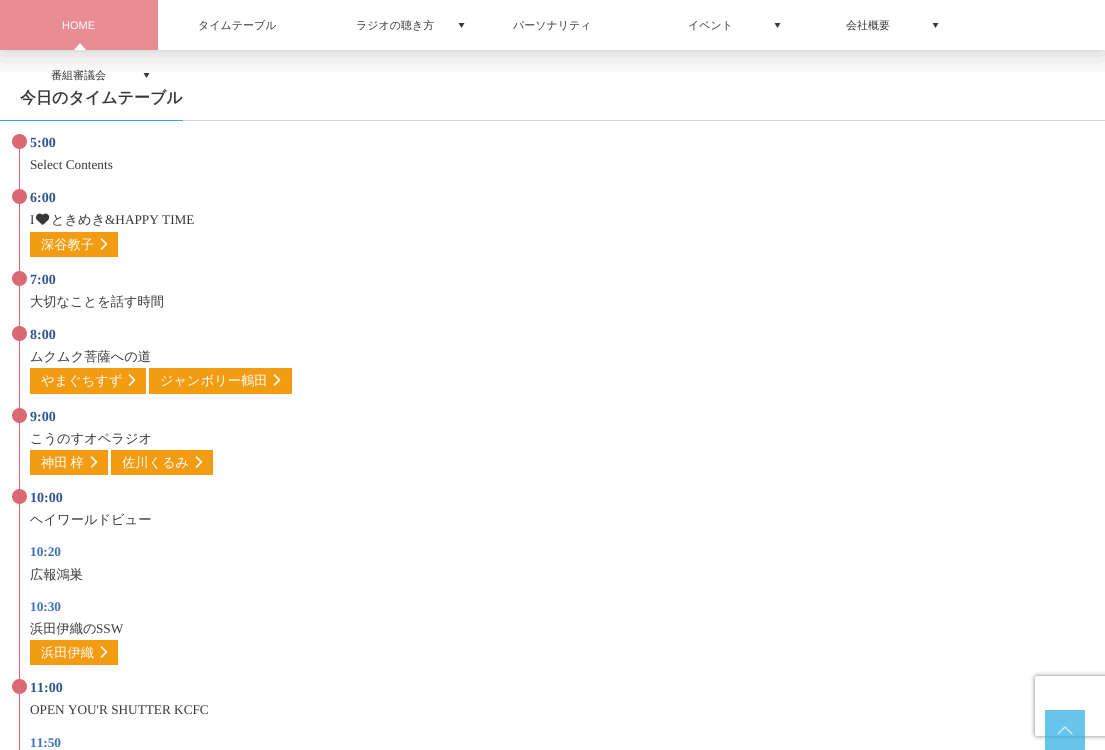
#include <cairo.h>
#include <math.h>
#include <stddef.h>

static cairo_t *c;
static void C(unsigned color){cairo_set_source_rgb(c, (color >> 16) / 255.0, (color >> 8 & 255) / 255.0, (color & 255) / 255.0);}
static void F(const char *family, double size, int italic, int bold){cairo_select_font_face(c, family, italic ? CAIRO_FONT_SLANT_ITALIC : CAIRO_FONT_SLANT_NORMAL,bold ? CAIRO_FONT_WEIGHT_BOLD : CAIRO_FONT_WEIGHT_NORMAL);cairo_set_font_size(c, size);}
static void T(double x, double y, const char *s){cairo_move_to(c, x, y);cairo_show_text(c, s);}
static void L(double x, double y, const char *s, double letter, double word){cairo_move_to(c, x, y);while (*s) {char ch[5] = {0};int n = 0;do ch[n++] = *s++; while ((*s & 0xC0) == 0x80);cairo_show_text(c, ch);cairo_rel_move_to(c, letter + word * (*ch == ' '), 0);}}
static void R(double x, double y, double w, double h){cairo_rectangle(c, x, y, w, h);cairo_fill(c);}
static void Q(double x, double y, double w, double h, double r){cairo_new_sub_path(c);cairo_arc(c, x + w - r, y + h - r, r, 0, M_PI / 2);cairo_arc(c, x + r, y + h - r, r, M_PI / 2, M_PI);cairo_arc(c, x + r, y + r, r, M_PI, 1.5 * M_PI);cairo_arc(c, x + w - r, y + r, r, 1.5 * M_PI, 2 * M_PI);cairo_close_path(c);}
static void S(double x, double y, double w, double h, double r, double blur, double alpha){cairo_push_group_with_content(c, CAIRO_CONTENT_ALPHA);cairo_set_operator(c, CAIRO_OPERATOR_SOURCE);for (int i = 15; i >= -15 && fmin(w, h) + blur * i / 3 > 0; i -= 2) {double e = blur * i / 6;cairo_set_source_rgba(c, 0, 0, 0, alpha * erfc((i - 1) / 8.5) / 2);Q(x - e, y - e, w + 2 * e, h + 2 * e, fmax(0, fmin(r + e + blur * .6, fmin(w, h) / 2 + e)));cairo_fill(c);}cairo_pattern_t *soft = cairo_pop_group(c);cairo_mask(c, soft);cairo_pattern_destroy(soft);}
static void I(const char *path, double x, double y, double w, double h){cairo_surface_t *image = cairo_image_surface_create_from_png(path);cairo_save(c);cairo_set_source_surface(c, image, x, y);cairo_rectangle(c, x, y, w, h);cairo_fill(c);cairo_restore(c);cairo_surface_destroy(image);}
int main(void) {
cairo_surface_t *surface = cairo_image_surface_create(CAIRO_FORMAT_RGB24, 1105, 750);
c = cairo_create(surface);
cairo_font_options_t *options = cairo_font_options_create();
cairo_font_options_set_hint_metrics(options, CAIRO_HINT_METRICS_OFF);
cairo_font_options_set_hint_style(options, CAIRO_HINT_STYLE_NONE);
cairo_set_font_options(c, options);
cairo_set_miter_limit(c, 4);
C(0xffffff);
cairo_paint(c);
cairo_save(c);
cairo_rectangle(c,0,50,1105,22);
cairo_clip(c);
C(0x000000);
S(0,0,1105,50,0,16,.24);
cairo_restore(c);
C(0xe98d95);
R(0,0,158,50);
F("Liberation Sans",11,0,0);
C(0xffffff);
T(62,29,"HOME");
cairo_new_path(c);
cairo_move_to(c,86,50);
cairo_line_to(c,74,50);
cairo_line_to(c,80,43);
cairo_close_path(c);
cairo_fill(c);
F("WenQuanYi Zen Hei Medium",11,0,0);
C(0x383838);
T(198,29,"タイムテーブル");
T(356,29,"ラジオの聴き方");
cairo_new_path(c);
cairo_move_to(c,464.5,23);
cairo_line_to(c,458.5,23);
cairo_line_to(c,461.5,28);
cairo_close_path(c);
cairo_fill(c);
T(513,29,"パーソナリティ");
T(688,29,"イベント");
cairo_new_path(c);
cairo_move_to(c,780.5,23);
cairo_line_to(c,774.5,23);
cairo_line_to(c,777.5,28);
cairo_close_path(c);
cairo_fill(c);
T(846,29,"会社概要");
cairo_new_path(c);
cairo_move_to(c,938.5,23);
cairo_line_to(c,932.5,23);
cairo_line_to(c,935.5,28);
cairo_close_path(c);
cairo_fill(c);
T(51,79,"番組審議会");
cairo_new_path(c);
cairo_move_to(c,149.5,73);
cairo_line_to(c,143.5,73);
cairo_line_to(c,146.5,78);
cairo_close_path(c);
cairo_fill(c);
C(0xd7d7d7);
R(183,120,922,1);
C(0x29abe2);
R(0,120,183,1);
F("WenQuanYi Zen Hei",16,0,1);
C(0x383838);
T(20,103,"今日のタイムテーブル");
C(0xdb6973);
R(19,148,1,602);
cairo_new_path(c);
cairo_arc(c,19.5,141.5,7.5,0,2 * M_PI);
cairo_fill(c);
F("Liberation Serif",14,0,1);
C(0x2d558f);
T(30,147,"5:00");
F("Liberation Serif",13.25,0,0);
C(0x383838);
T(30,169,"Select Contents");
C(0xdb6973);
cairo_new_path(c);
cairo_arc(c,19.5,196.5,7.5,0,2 * M_PI);
cairo_fill(c);
F("Liberation Serif",14,0,1);
C(0x2d558f);
T(30,202,"6:00");
F("Liberation Serif",13.25,0,0);
C(0x383838);
T(30,224,"I");
I("1.png",36,213,14,12);
F("WenQuanYi Zen Hei Medium",13.25,0,0);
T(51,224,"ときめき");
F("Liberation Serif",13.25,0,0);
T(105,224,"&HAPPY TIME");
C(0xf39c12);
R(30,232,88,25);
F("WenQuanYi Zen Hei Medium",13.25,0,0);
C(0xffffff);
T(41,249,"深谷教子");
I("2.png",100,238,8,12);
C(0xdb6973);
cairo_arc(c,19.5,278.5,7.5,0,2 * M_PI);
cairo_fill(c);
F("Liberation Serif",14,0,1);
C(0x2d558f);
T(30,284,"7:00");
F("WenQuanYi Zen Hei Medium",13.25,0,0);
C(0x383838);
T(30,306,"大切なことを話す時間");
C(0xdb6973);
cairo_new_path(c);
cairo_arc(c,19.5,333.5,7.5,0,2 * M_PI);
cairo_fill(c);
F("Liberation Serif",14,0,1);
C(0x2d558f);
T(30,339,"8:00");
F("WenQuanYi Zen Hei Medium",13.25,0,0);
C(0x383838);
T(30,361,"ムクムク菩薩への道");
C(0xf39c12);
R(30,368,116,26);
C(0xffffff);
T(41,385,"やまぐちすず");
I("2.png",128,374,8,12);
C(0xf39c12);
R(149,368,143,26);
C(0xffffff);
T(160,385,"ジャンボリー鶴田");
I("2.png",273,374,8,12);
C(0xdb6973);
cairo_arc(c,19.5,415.5,7.5,0,2 * M_PI);
cairo_fill(c);
F("Liberation Serif",14,0,1);
C(0x2d558f);
T(30,421,"9:00");
F("WenQuanYi Zen Hei Medium",13.25,0,0);
C(0x383838);
T(30,443,"こうのすオペラジオ");
C(0xf39c12);
R(30,450,78,25);
C(0xffffff);
L(41,467,"神田 梓",0,-1);
I("2.png",90,456,8,12);
C(0xf39c12);
R(111,450,102,25);
C(0xffffff);
T(122,467,"佐川くるみ");
I("2.png",195,456,8,12);
C(0xdb6973);
cairo_arc(c,19.5,496.5,7.5,0,2 * M_PI);
cairo_fill(c);
F("Liberation Serif",14,0,1);
C(0x2d558f);
T(30,502,"10:00");
F("WenQuanYi Zen Hei Medium",13.25,0,0);
C(0x383838);
T(30,524,"ヘイワールドビュー");
F("Liberation Serif",13.25,0,1);
C(0x3c70bb);
T(30,556,"10:20");
F("WenQuanYi Zen Hei Medium",13.25,0,0);
C(0x383838);
T(30,579,"広報鴻巣");
F("Liberation Serif",13.25,0,1);
C(0x3c70bb);
T(30,611,"10:30");
F("WenQuanYi Zen Hei Medium",13.25,0,0);
C(0x383838);
T(30,633,"浜田伊織の");
F("Liberation Serif",13.25,0,0);
T(96,633,"SSW");
C(0xf39c12);
R(30,640,88,25);
F("WenQuanYi Zen Hei Medium",13.25,0,0);
C(0xffffff);
T(41,657,"浜田伊織");
I("2.png",100,646,8,12);
C(0xdb6973);
cairo_arc(c,19.5,686.5,7.5,0,2 * M_PI);
cairo_fill(c);
F("Liberation Serif",14,0,1);
C(0x2d558f);
T(30,692,"11:00");
F("Liberation Serif",13.25,0,0);
C(0x383838);
T(30,714,"OPEN YOU'R SHUTTER KCFC");
F("Liberation Serif",13.25,0,1);
C(0x3c70bb);
T(30,747,"11:50");
cairo_save(c);
cairo_set_fill_rule(c,CAIRO_FILL_RULE_EVEN_ODD);
cairo_new_path(c);
cairo_move_to(c,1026,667);
cairo_line_to(c,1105,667);
cairo_line_to(c,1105,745);
cairo_line_to(c,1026,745);
cairo_close_path(c);
cairo_move_to(c,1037,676);
cairo_line_to(c,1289,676);
cairo_curve_to(c,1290,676,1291,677,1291,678);
cairo_line_to(c,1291,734);
cairo_curve_to(c,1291,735,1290,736,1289,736);
cairo_line_to(c,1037,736);
cairo_curve_to(c,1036,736,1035,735,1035,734);
cairo_line_to(c,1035,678);
cairo_curve_to(c,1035,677,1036,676,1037,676);
cairo_close_path(c);
cairo_clip(c);
C(0x808080);
S(1035,676,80,60,2,2.5,1);
cairo_restore(c);
cairo_set_source_rgba(c,0.161,0.671,0.886,0.7);
R(1045,710,40,40);
I("3.png",1057,726,16,9);
cairo_surface_write_to_png(surface, "o.png");
cairo_font_options_destroy(options);
cairo_destroy(c);
cairo_surface_destroy(surface);
return 0;
}
